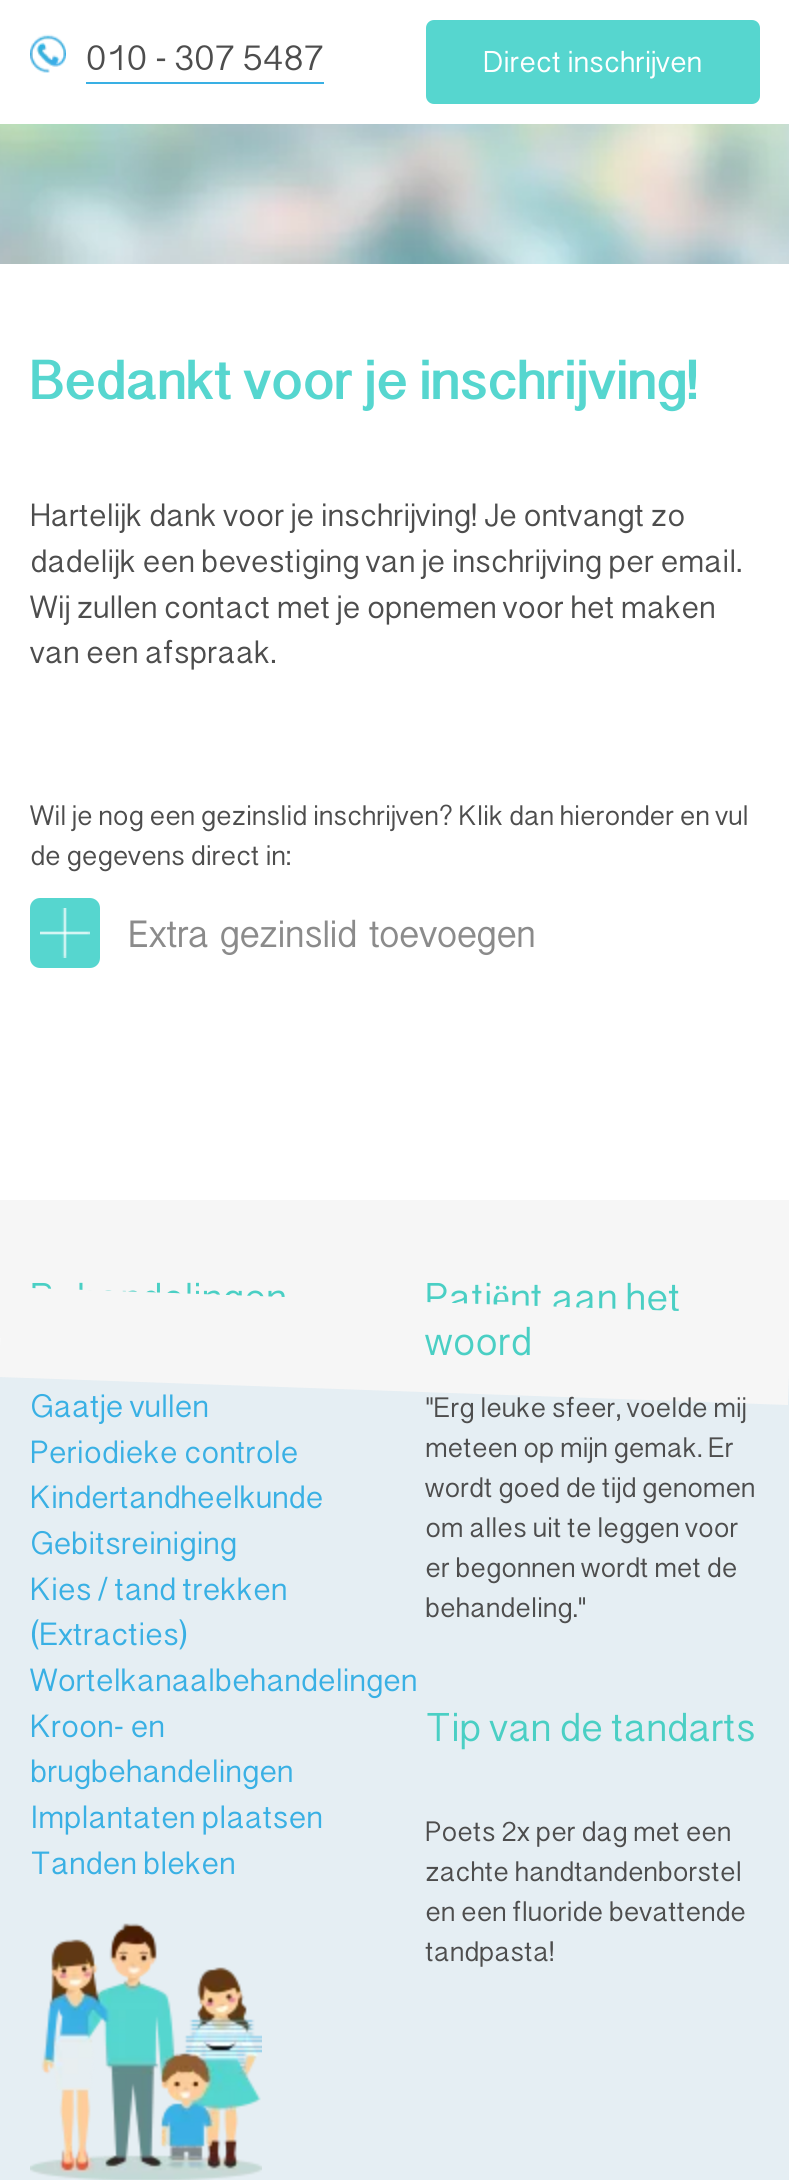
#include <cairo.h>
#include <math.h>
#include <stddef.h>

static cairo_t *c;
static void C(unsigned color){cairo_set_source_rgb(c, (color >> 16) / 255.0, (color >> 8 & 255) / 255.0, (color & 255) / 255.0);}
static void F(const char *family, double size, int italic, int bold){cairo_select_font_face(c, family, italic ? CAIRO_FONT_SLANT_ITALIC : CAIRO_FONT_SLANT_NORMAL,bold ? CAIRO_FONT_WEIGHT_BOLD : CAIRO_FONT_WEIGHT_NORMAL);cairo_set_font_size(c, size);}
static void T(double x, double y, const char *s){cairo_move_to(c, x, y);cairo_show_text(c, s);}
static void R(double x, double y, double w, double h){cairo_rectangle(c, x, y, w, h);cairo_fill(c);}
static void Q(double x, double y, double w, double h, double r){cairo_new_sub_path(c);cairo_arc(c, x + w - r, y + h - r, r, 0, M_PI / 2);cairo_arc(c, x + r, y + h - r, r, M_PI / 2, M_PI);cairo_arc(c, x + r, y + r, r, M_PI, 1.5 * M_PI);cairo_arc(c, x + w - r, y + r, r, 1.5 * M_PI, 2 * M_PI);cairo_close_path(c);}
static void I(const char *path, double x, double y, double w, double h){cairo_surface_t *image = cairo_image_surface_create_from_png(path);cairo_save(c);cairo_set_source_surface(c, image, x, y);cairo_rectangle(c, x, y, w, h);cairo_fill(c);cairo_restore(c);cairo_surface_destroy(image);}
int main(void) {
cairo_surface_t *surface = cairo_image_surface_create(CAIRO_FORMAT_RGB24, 789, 2180);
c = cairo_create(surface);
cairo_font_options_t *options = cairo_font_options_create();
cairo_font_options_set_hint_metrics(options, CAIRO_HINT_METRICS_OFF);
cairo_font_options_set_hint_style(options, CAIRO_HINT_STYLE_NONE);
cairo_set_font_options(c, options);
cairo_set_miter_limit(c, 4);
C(0xffffff);
cairo_paint(c);
I("1.png",30,34,36,39);
F("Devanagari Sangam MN",36,0,0);
C(0x4d4d4d);
T(86,70,"010 - 307 5487");
C(0x39b0e4);
R(86,82,238,2);
C(0x56d6cf);
Q(426,20,334,84,8);
cairo_fill(c);
F("Devanagari Sangam MN",30,0,0);
C(0xffffff);
T(483,72,"Direct inschrijven");
I("2.png",0,124,789,140);
F("Devanagari Sangam MN",56,0,1);
C(0x56d6cf);
T(30,399,"Bedankt voor je inschrijving!");
F("Devanagari Sangam MN",32,0,0);
C(0x4d4d4d);
T(30,526,"Hartelijk dank voor je inschrijving! Je ontvangt zo");
T(30,572,"dadelijk een bevestiging van je inschrijving per email.");
T(30,618,"Wij zullen contact met je opnemen voor het maken");
T(30,663,"van een afspraak.");
F("Devanagari Sangam MN",28,0,0);
T(30,825,"Wil je nog een gezinslid inschrijven? Klik dan hieronder en vul");
T(30,865,"de gegevens direct in:");
C(0x56d6cf);
Q(30,898,70,70,10);
cairo_fill(c);
I("3.png",40,908,50,50);
F("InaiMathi",40,0,0);
C(0x8b8b8b);
T(128,947,"Extra gezinslid toevoegen");
C(0xf6f6f6);
R(0,1200,789,138);
F("Devanagari Sangam MN",40,0,0);
C(0x4acfc4);
T(30,1311,"Behandelingen");
T(425,1311,"Pati");
F("Liberation Serif",40,0,0);
T(492,1311,"ë");
F("Devanagari Sangam MN",40,0,0);
T(510,1311,"nt aan het");
C(0xe5eef3);
R(0,1346,789,834);
C(0xf6f6f6);
cairo_new_path(c);
cairo_move_to(c,2,1287);
cairo_line_to(c,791,1315);
cairo_line_to(c,788,1405);
cairo_line_to(c,-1,1377);
cairo_close_path(c);
cairo_fill(c);
C(0x4acfc4);
T(425,1355,"woord");
F("Devanagari Sangam MN",32,0,0);
C(0x39b0e4);
T(30,1417,"Gaatje vullen");
T(30,1463,"Periodieke controle");
T(30,1508,"Kindertandheelkunde");
T(30,1554,"Gebitsreiniging");
T(30,1600,"Kies / tand trekken");
T(30,1645,"(Extracties)");
T(30,1691,"Wortelkanaalbehandelingen");
T(30,1737,"Kroon- en");
T(30,1782,"brugbehandelingen");
T(30,1828,"Implantaten plaatsen");
T(30,1874,"Tanden bleken");
I("4.png",30,1923,232,257);
F("Devanagari Sangam MN",28,0,0);
C(0x4d4d4d);
T(425,1417,"\"Erg leuke sfeer, voelde mij");
T(425,1457,"meteen op mijn gemak. Er");
T(425,1497,"wordt goed de tijd genomen");
T(425,1537,"om alles uit te leggen voor");
T(425,1577,"er begonnen wordt met de");
T(425,1617,"behandeling.\"");
F("Devanagari Sangam MN",40,0,0);
C(0x4acfc4);
T(425,1741,"Tip van de tandarts");
F("Devanagari Sangam MN",28,0,0);
C(0x4d4d4d);
T(425,1841,"Poets 2x per dag met een");
T(425,1881,"zachte handtandenborstel");
T(425,1921,"en een fluoride bevattende");
T(425,1961,"tandpasta!");
cairo_surface_write_to_png(surface, "o.png");
cairo_font_options_destroy(options);
cairo_destroy(c);
cairo_surface_destroy(surface);
return 0;
}
